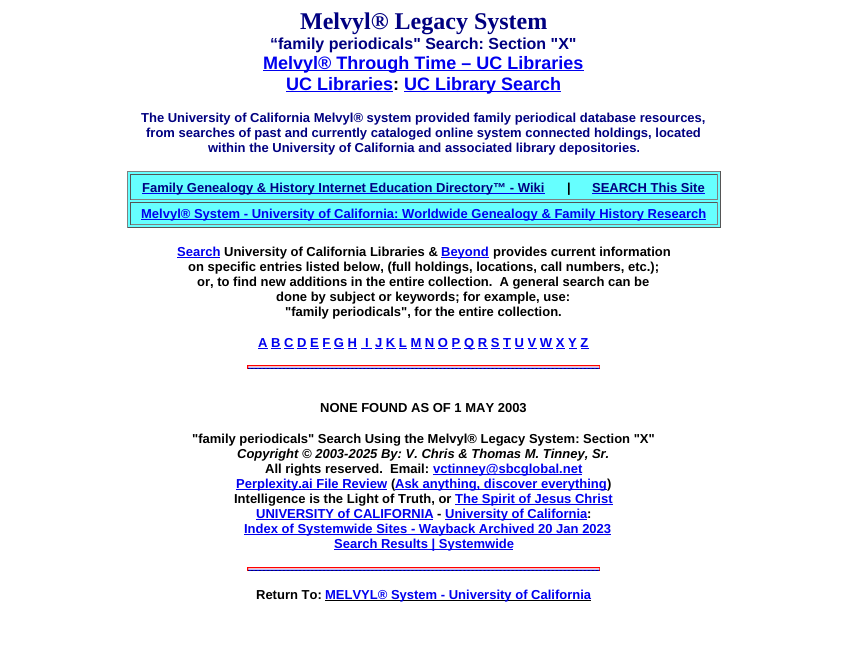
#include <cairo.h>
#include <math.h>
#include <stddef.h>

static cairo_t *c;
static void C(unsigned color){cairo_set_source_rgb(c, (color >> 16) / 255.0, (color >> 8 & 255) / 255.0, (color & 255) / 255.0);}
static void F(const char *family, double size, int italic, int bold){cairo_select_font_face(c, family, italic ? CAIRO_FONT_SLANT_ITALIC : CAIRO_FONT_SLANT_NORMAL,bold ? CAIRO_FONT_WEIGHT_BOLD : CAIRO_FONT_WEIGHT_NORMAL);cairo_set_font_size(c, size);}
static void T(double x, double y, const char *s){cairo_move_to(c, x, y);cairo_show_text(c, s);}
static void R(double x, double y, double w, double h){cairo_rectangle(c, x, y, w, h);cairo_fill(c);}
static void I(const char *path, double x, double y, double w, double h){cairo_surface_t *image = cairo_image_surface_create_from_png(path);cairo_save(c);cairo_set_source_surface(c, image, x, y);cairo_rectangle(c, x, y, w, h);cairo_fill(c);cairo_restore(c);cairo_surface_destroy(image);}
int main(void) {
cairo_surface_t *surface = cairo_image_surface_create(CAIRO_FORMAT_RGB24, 847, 646);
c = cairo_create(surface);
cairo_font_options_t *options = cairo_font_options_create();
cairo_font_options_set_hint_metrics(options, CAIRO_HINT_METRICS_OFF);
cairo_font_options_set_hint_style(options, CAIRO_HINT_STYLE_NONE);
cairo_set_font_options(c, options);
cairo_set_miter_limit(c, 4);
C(0xffffff);
cairo_paint(c);
F("Liberation Serif",24,0,1);
C(0x000080);
T(300,29,"Melvyl® Legacy System");
F("Liberation Sans",16,0,1);
T(270,49,"“family periodicals\" Search: Section \"X\"");
C(0x0000ee);
R(263,70,321,1);
F("Liberation Sans",18,0,1);
T(263,69,"Melvyl® Through Time – UC Libraries");
T(286,90,"UC Libraries");
C(0x000000);
T(393,90,":");
C(0x0000ee);
R(286,91,107,1);
R(404,91,157,1);
T(404,90,"UC Library Search");
F("Liberation Sans",13,0,1);
C(0x000080);
T(141,122,"The University of California Melvyl® system provided family periodical database resources,");
T(146,137,"from searches of past and currently cataloged online system connected holdings, located");
T(208,152,"within the University of California and associated library depositories.");
C(0x66ffff);
R(128,172,592,55);
C(0x808080);
R(127,171,594,1);
C(0x555555);
R(720,171,1,57);
R(127,227,594,1);
C(0x808080);
R(127,171,1,57);
C(0x555555);
R(130,174,588,1);
C(0x808080);
R(717,174,1,26);
R(130,199,588,1);
C(0x555555);
R(130,174,1,26);
C(0x0000ee);
R(142,193,403,1);
C(0x000080);
T(142,192,"Family Genealogy & History Internet Education Directory™ - Wiki");
C(0x000000);
T(567,192,"|");
C(0x000080);
T(592,192,"SEARCH This Site");
C(0x0000ee);
R(592,193,113,1);
C(0x555555);
R(130,202,588,1);
C(0x808080);
R(717,202,1,23);
R(130,224,588,1);
C(0x555555);
R(130,202,1,23);
C(0x0000ee);
R(141,219,565,1);
T(141,218,"Melvyl® System - University of California: Worldwide Genealogy & Family History Research");
T(177,256,"Search");
R(177,257,43,1);
C(0x000000);
T(224,256,"University of California Libraries &");
C(0x0000ee);
R(441,257,48,1);
T(441,256,"Beyond");
C(0x000000);
T(493,256,"provides current information");
T(188,271,"on specific entries listed below, (full holdings, locations, call numbers, etc.);");
T(197,286,"or, to find new additions in the entire collection.  A general search can be");
T(276,301,"done by subject or keywords; for example, use:");
T(285,316,"\"family periodicals\", for the entire collection.");
C(0x0000ee);
T(258,347,"A B C D E F G H");
R(258,348,10,1);
R(271,348,10,1);
R(284,348,10,1);
R(297,348,10,1);
R(310,348,9,1);
R(323,348,8,1);
R(334,348,10,1);
R(348,348,9,1);
T(365,347,"I");
R(361,348,11,1);
T(375,347,"J K L M N O P");
R(375,348,8,1);
R(386,348,10,1);
R(399,348,8,1);
R(411,348,11,1);
R(425,348,10,1);
R(438,348,10,1);
R(452,348,9,1);
R(464,348,11,1);
T(464,347,"Q R S T U V W X Y Z");
R(478,348,10,1);
R(491,348,9,1);
R(503,348,8,1);
R(515,348,9,1);
R(528,348,9,1);
R(540,348,13,1);
R(556,348,9,1);
R(569,348,8,1);
R(581,348,8,1);
I("1.png",247,365,353,4);
C(0x000000);
T(320,412,"NONE FOUND AS OF 1 MAY 2003");
T(192,443,"\"family periodicals\" Search Using the Melvyl® Legacy System: Section \"X\"");
F("Liberation Sans",13,1,1);
T(237,458,"Copyright © 2003-2025 By: V. Chris & Thomas M. Tinney, Sr.");
F("Liberation Sans",13,0,1);
T(265,473,"All rights reserved.  Email:");
C(0x0000ee);
R(433,474,149,1);
T(433,473,"vctinney@sbcglobal.net");
R(236,489,151,1);
T(236,488,"Perplexity.ai File Review");
C(0x000000);
T(391,488,"(");
C(0x0000ee);
R(395,489,212,1);
T(395,488,"Ask anything, discover everything");
C(0x000000);
T(607,488,")");
T(234,503,"Intelligence is the Light of Truth, or");
C(0x0000ee);
R(455,504,158,1);
T(455,503,"The Spirit of Jesus Christ");
T(256,518,"UNIVERSITY of CALIFORNIA");
R(256,519,177,1);
C(0x000000);
T(437,518,"-");
C(0x0000ee);
R(445,519,142,1);
T(445,518,"University of California");
C(0x000000);
T(587,518,":");
C(0x0000ee);
R(244,534,367,1);
T(244,533,"Index of Systemwide Sites - Wayback Archived 20 Jan 2023");
R(334,549,179,1);
T(334,548,"Search Results | Systemwide");
I("1.png",247,567,353,4);
C(0x000000);
T(256,599,"Return To:");
R(325,600,266,1);
C(0x0000ee);
T(325,599,"MELVYL® System - University of California");
cairo_surface_write_to_png(surface, "o.png");
cairo_font_options_destroy(options);
cairo_destroy(c);
cairo_surface_destroy(surface);
return 0;
}
